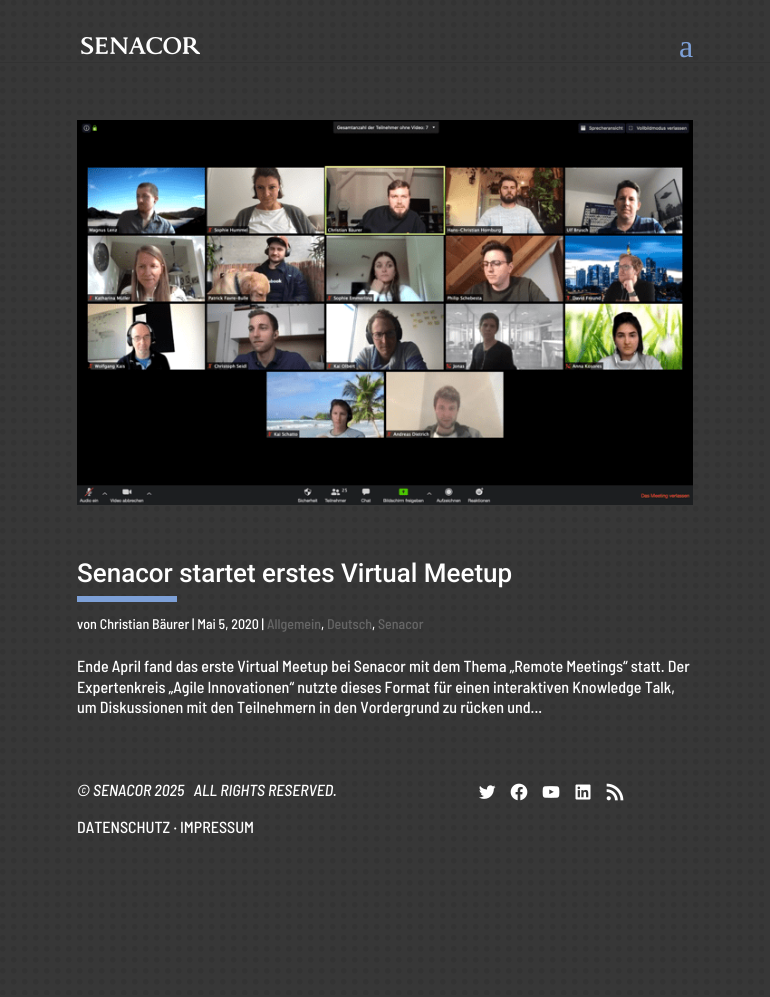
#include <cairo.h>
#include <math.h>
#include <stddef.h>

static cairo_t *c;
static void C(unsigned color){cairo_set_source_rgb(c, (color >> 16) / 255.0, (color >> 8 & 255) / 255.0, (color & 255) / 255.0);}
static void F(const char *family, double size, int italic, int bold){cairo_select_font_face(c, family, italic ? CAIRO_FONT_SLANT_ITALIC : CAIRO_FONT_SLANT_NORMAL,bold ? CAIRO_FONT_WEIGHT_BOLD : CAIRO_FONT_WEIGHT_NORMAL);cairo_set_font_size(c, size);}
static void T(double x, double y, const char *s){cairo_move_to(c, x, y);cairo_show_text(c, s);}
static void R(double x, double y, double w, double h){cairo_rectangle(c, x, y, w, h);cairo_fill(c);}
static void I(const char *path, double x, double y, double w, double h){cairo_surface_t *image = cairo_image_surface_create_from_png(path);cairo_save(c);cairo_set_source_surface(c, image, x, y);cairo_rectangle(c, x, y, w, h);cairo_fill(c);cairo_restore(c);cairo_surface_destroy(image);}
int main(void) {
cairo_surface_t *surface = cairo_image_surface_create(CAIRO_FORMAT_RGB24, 770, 997);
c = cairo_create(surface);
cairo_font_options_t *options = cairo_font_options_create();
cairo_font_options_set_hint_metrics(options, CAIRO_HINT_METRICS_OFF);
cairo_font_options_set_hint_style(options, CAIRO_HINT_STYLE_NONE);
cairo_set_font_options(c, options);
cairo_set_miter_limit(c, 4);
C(0x373737);
cairo_paint(c);
I("1.png",0,0,764,995);
C(0x323232);
R(0,62,770,1);
I("2.png",81,37,119,18);
F("Liberation Serif",32,0,0);
C(0x7da0d7);
T(679,57,"a");
I("3.png",77,120,616,385);
F("Roboto Medium",26,0,0);
C(0xffffff);
T(77,582,"Senacor startet erstes Virtual Meetup");
C(0x7da0d7);
R(77,596,100,6);
F("Barlow Semi Condensed Medium",14,0,0);
C(0xffffff);
T(77,629,"von Christian Bäurer | Mai 5, 2020 |");
C(0x666666);
T(267,629,"Allgemein");
C(0xffffff);
T(321,629,",");
C(0x666666);
T(327,629,"Deutsch");
C(0xffffff);
T(372,629,",");
C(0x666666);
T(378,629,"Senacor");
F("Barlow Semi Condensed Medium",16,0,0);
C(0xffffff);
T(77,672,"Ende April fand das erste Virtual Meetup bei Senacor mit dem Thema „Remote Meetings“ statt. Der");
T(77,693,"Expertenkreis „Agile Innovationen“ nutzte dieses Format für einen interaktiven Knowledge Talk,");
T(77,713,"um Diskussionen mit den Teilnehmern in den Vordergrund zu rücken und...");
F("Barlow Semi Condensed Medium",16,1,0);
T(77,796,"© SENACOR 2025   ALL RIGHTS RESERVED.");
F("Barlow Semi Condensed Medium",16,0,0);
T(77,833,"DATENSCHUTZ · IMPRESSUM");
I("4.png",479,785,17,14);
I("5.png",510,783,18,18);
I("6.png",542,786,18,12);
I("7.png",575,784,16,16);
I("8.png",606,783,18,18);
cairo_surface_write_to_png(surface, "o.png");
cairo_font_options_destroy(options);
cairo_destroy(c);
cairo_surface_destroy(surface);
return 0;
}
